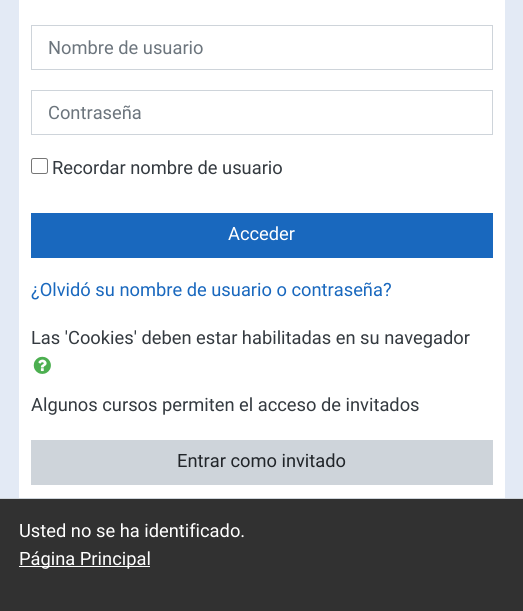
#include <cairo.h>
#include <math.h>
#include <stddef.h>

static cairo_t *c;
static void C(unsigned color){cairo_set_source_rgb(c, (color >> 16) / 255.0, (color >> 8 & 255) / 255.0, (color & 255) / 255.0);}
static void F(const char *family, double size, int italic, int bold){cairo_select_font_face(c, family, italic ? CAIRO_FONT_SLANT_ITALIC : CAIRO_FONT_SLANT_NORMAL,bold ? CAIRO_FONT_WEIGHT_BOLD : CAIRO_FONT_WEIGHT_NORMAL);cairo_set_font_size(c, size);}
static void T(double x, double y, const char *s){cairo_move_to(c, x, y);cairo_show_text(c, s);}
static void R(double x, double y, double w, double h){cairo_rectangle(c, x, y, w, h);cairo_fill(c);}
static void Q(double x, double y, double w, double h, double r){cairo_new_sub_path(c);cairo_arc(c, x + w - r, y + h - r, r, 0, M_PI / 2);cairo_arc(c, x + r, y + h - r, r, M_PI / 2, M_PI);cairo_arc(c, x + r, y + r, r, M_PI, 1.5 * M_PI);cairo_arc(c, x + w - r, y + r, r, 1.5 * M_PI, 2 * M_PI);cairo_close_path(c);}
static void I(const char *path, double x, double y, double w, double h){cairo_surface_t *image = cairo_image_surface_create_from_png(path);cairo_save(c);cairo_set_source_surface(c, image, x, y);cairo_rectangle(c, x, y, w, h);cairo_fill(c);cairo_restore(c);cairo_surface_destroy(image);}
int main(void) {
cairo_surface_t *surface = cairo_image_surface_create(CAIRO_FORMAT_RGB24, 523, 611);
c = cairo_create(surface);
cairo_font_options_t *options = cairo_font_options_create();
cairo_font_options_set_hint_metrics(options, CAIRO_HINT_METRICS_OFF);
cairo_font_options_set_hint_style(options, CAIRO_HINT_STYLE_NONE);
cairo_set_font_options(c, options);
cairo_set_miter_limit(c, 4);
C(0xe3eaf5);
cairo_paint(c);
C(0xffffff);
R(19,0,486,498);
cairo_rectangle(c,31.5,25.5,461,44);
C(0xced4da);
cairo_set_line_width(c,1);
cairo_stroke(c);
F("Roboto",18.3,0,0);
C(0x6c757d);
T(48,54,"Nombre de usuario");
cairo_rectangle(c,31.5,90.5,461,44);
C(0xced4da);
cairo_stroke(c);
C(0x6c757d);
T(48,119,"Contraseña");
Q(31.5,158.5,16,15,2);
C(0x767676);
cairo_stroke(c);
C(0x343a40);
T(52,174,"Recordar nombre de usuario");
C(0x1968be);
R(31,213,462,45);
C(0xffffff);
T(228,240,"Acceder");
C(0x1968be);
T(31,296,"¿Olvidó su nombre de usuario o contraseña?");
C(0x343a40);
T(31,344,"Las 'Cookies' deben estar habilitadas en su navegador");
I("1.png",33,356,18,18);
T(31,411,"Algunos cursos permiten el acceso de invitados");
C(0xced4da);
R(31,440,462,45);
C(0x212529);
T(177,467,"Entrar como invitado");
C(0x313131);
R(0,499,523,112);
C(0xced4da);
R(0,498,523,1);
C(0xffffff);
T(19,537,"Usted no se ha identificado.");
R(19,566,131,1);
T(19,565,"Página Principal");
cairo_surface_write_to_png(surface, "o.png");
cairo_font_options_destroy(options);
cairo_destroy(c);
cairo_surface_destroy(surface);
return 0;
}
